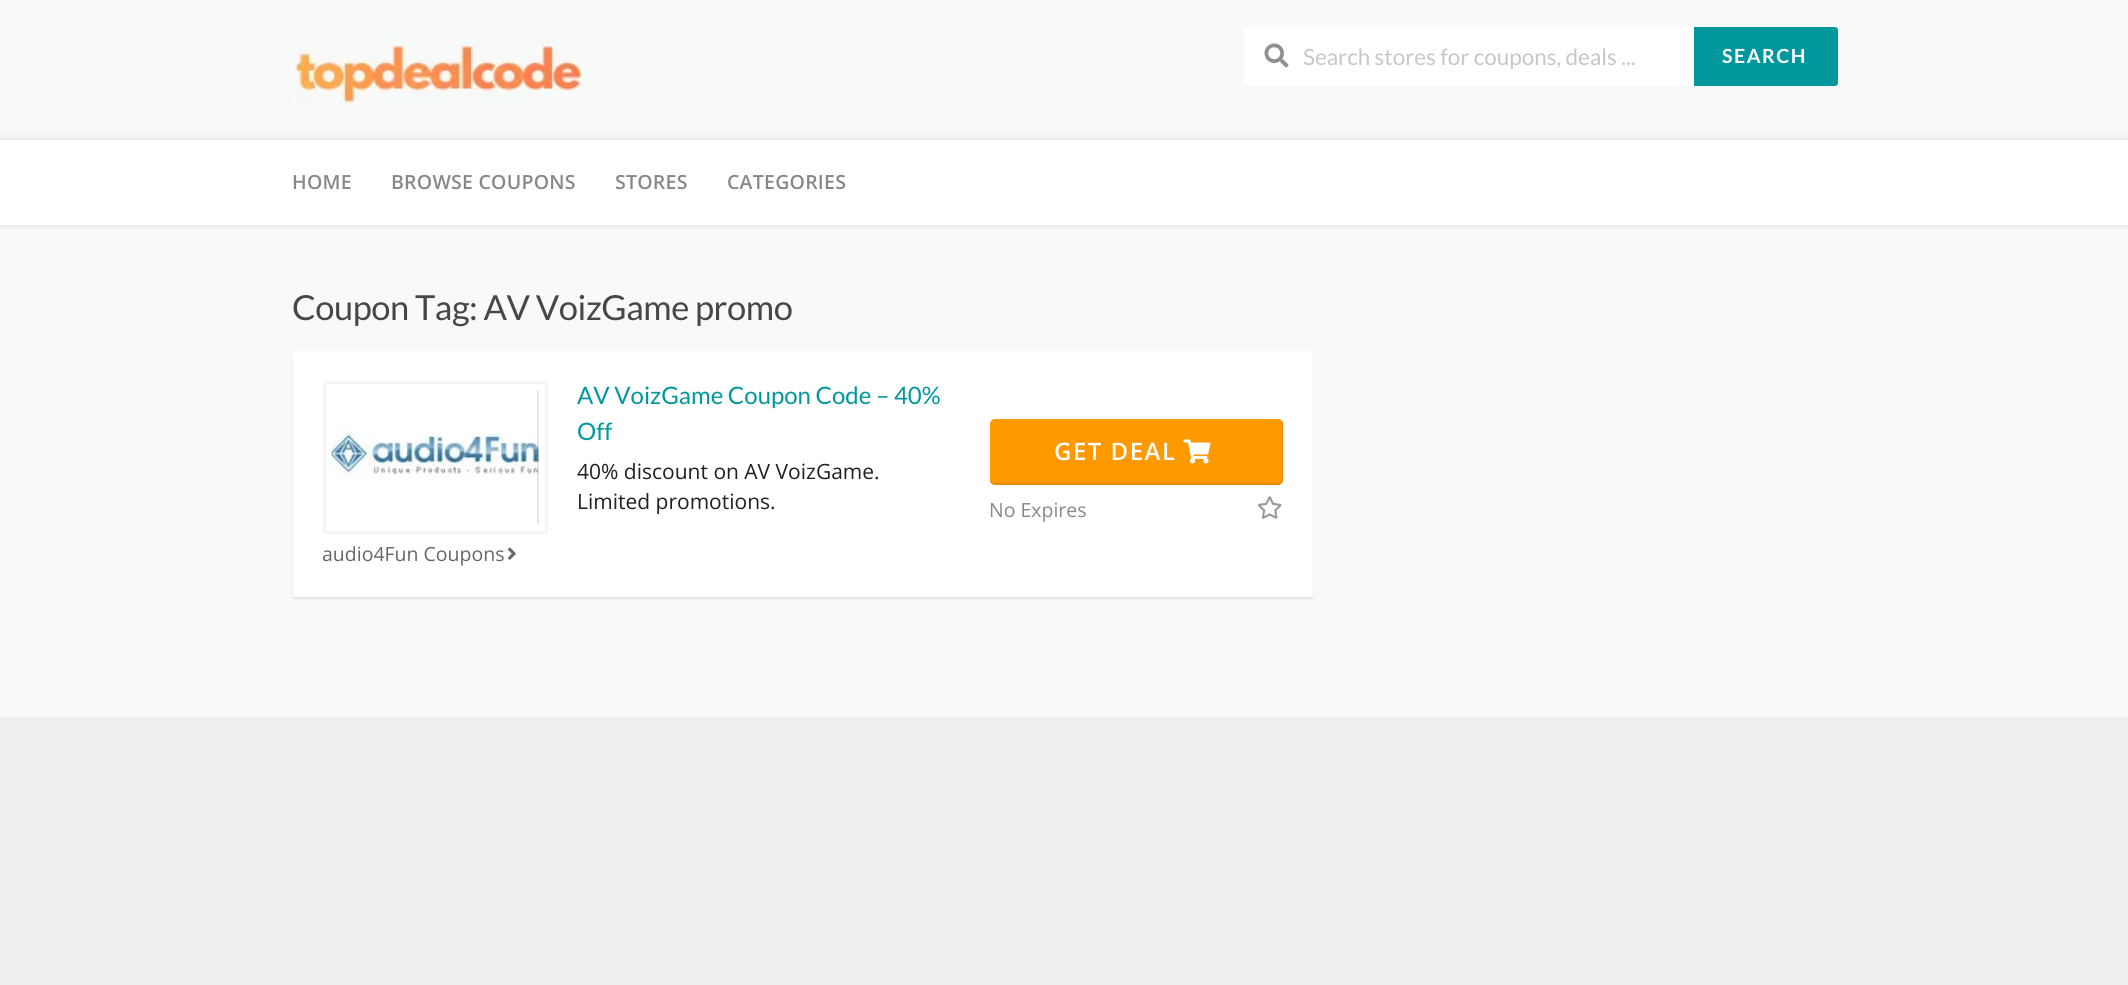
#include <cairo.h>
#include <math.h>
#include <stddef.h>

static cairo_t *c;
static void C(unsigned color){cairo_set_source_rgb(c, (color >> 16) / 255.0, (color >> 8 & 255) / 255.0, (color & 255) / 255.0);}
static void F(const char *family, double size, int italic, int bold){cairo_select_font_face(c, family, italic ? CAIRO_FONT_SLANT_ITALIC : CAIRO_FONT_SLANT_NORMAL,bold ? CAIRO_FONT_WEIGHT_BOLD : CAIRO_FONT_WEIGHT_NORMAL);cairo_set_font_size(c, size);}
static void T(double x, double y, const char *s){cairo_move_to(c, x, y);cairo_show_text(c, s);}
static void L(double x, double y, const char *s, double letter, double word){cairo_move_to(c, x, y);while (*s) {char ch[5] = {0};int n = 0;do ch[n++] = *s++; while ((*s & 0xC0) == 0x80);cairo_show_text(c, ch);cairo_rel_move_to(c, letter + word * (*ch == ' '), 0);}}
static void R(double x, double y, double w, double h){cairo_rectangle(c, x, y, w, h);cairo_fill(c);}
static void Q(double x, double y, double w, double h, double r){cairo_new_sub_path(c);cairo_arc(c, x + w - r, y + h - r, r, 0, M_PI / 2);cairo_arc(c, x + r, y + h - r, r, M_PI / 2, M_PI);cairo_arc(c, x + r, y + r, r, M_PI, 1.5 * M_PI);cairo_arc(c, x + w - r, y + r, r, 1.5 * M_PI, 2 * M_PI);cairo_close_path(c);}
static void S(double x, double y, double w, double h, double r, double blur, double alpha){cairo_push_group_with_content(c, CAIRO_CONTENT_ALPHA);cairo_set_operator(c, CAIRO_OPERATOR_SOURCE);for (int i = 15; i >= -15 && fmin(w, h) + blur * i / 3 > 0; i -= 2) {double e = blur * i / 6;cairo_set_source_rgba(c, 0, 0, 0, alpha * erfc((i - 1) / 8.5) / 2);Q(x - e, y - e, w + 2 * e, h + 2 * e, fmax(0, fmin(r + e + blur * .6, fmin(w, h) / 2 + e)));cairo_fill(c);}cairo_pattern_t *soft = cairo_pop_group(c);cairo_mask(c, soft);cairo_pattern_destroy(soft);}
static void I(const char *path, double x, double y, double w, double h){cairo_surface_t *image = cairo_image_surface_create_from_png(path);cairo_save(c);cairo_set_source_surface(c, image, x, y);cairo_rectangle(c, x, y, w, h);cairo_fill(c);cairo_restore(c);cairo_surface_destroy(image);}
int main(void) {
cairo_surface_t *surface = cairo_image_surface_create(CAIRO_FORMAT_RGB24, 2128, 985);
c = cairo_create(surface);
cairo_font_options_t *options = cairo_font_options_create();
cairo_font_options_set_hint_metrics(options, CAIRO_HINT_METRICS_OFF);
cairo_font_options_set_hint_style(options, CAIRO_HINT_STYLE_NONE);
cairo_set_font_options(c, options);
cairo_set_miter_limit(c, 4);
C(0xf8f9f9);
cairo_paint(c);
I("1.png",292,37,290,69);
C(0xffffff);
cairo_new_path(c);
cairo_move_to(c,1247,27);
cairo_line_to(c,1694,27);
cairo_line_to(c,1694,86);
cairo_line_to(c,1247,86);
cairo_curve_to(c,1245.5,86,1244,84.5,1244,83);
cairo_line_to(c,1244,30);
cairo_curve_to(c,1244,28.5,1245.5,27,1247,27);
cairo_close_path(c);
cairo_fill(c);
I("2.png",1264,43,25,25);
F("Lato",22.5,0,0);
C(0xc7c7c7);
T(1303,65,"Search stores for coupons, deals ...");
C(0x00979d);
cairo_new_path(c);
cairo_move_to(c,1694,27);
cairo_line_to(c,1835,27);
cairo_curve_to(c,1836.5,27,1838,28.5,1838,30);
cairo_line_to(c,1838,83);
cairo_curve_to(c,1838,84.5,1836.5,86,1835,86);
cairo_line_to(c,1694,86);
cairo_close_path(c);
cairo_fill(c);
F("Lato",19.5,0,1);
C(0xffffff);
L(1722,63,"SEARCH",1.5,0);
C(0x000000);
S(0,140,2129,85,0,4,.12);
C(0xffffff);
R(0,140,2128,85);
F("Open Sans SemiBold",19.5,0,0);
C(0x888888);
L(292,189,"HOME",.25,0);
L(391,189,"BROWSE COUPONS",.25,0);
L(615,189,"STORES",.25,0);
L(727,189,"CATEGORIES",.25,0);
F("Lato",34.5,0,0);
C(0x474747);
L(292,320,"Coupon Tag: AV VoizGame promo",-.45,0);
C(0x000000);
S(293,353,1020,246,0,1,.08);
C(0xffffff);
R(293,351,1020,246);
F("Lato",24,0,0);
C(0x00979d);
T(577,404,"AV VoizGame Coupon Code – 40%");
T(577,440,"Off");
F("Open Sans",21,0,0);
C(0x212121);
T(577,479,"40% discount on AV VoizGame.");
T(577,509,"Limited promotions.");
C(0xff9900);
Q(990,419,293,66,5);
cairo_fill(c);
cairo_set_source_rgba(c,0,0,0,0.1);
cairo_new_path(c);
cairo_move_to(c,990,478);
cairo_line_to(c,990,480);
cairo_curve_to(c,990,483,992,485,995,485);
cairo_line_to(c,1278,485);
cairo_curve_to(c,1281,485,1283,483,1283,480);
cairo_line_to(c,1283,424);
cairo_curve_to(c,1283,423,1283,422,1282,421);
cairo_line_to(c,1282,478);
cairo_curve_to(c,1282,481,1280,483,1278,483);
cairo_line_to(c,994,483);
cairo_curve_to(c,992,483,990,481,990,478);
cairo_close_path(c);
cairo_fill(c);
F("Open Sans SemiBold",24,0,0);
C(0xffffff);
L(1054,460,"GET DEAL",1.5,0);
I("3.png",1183,439,28,25);
F("Open Sans",19.5,0,0);
C(0x888888);
T(989,517,"No Expires");
I("4.png",1257,496,25,23);
Q(324.5,382.5,222,150,1.5);
C(0xf5f5f5);
cairo_set_line_width(c,3);
cairo_stroke(c);
I("5.png",331,390,208,135);
cairo_save(c);
cairo_rectangle(c,323,542,205,25);
cairo_clip(c);
C(0x666666);
T(322,561,"audio4Fun Coupons");
cairo_restore(c);
I("6.png",508,547,8,13);
C(0xefefef);
R(0,717,2128,268);
cairo_surface_write_to_png(surface, "o.png");
cairo_font_options_destroy(options);
cairo_destroy(c);
cairo_surface_destroy(surface);
return 0;
}
